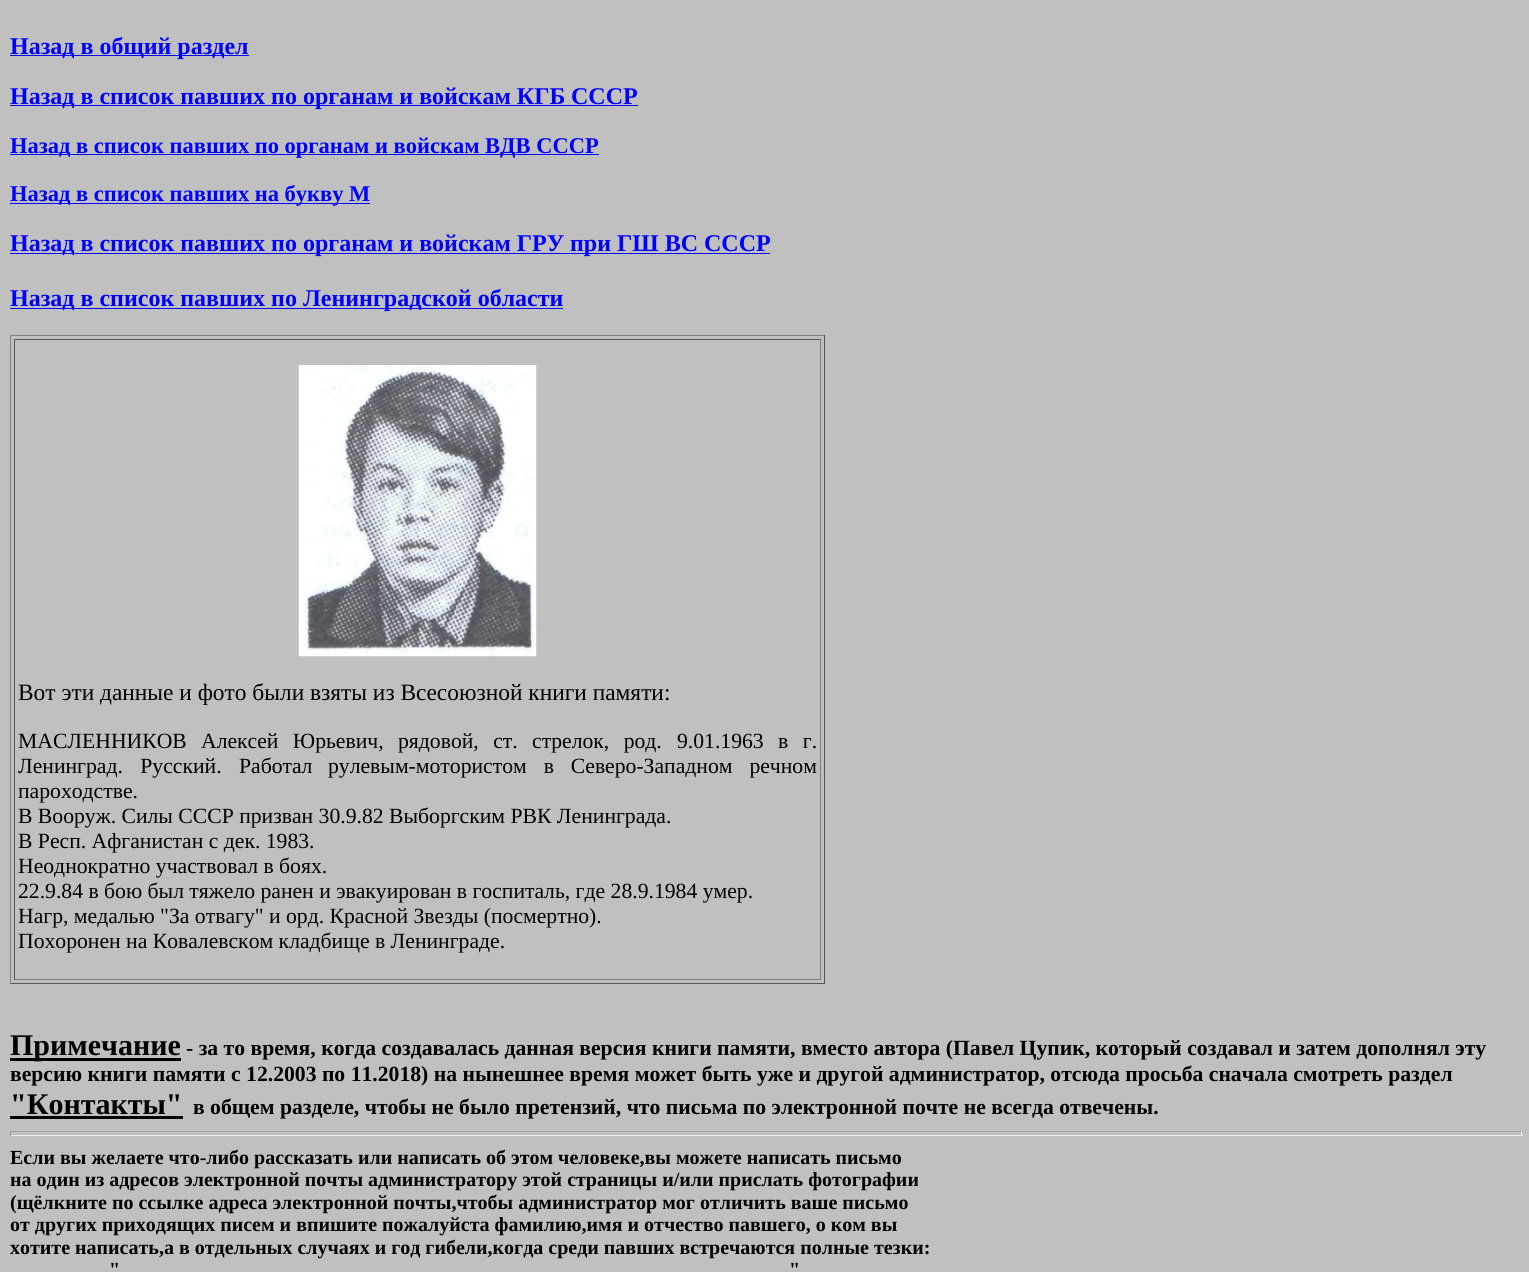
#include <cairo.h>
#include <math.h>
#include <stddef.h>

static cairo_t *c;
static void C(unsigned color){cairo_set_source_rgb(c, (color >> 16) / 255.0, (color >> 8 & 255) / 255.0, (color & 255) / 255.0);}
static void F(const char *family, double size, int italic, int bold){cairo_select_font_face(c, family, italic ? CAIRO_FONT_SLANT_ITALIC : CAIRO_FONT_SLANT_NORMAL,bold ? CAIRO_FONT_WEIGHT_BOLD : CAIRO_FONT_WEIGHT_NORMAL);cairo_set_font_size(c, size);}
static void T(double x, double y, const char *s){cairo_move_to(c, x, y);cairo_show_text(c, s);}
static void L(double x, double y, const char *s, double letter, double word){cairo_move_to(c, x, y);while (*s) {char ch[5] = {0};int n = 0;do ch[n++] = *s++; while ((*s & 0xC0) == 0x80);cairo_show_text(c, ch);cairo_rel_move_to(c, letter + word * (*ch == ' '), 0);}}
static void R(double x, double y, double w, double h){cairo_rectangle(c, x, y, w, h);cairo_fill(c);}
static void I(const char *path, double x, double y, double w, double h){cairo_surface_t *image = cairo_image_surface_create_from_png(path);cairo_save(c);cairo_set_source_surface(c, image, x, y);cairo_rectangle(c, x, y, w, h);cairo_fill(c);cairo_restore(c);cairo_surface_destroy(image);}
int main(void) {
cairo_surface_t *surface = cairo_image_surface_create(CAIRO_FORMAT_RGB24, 1529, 1272);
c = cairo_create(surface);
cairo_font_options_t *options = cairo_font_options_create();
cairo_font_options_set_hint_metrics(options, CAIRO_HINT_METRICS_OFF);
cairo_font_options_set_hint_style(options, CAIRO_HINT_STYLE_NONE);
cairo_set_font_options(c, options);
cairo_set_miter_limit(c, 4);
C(0xc0c0c0);
cairo_paint(c);
C(0x0000ff);
R(10,55,239,1);
F("Liberation Serif",24,0,1);
T(10,54,"Назад в общий раздел");
R(10,105,628,1);
T(10,104,"Назад в список павших по органам и войскам КГБ");
T(571,104,"СССР");
R(10,154,589,1);
F("Liberation Serif",22.5,0,1);
T(10,153,"Назад в список павших по органам и войскам ВДВ СССР");
R(10,203,360,1);
T(10,201,"Назад в список павших на букву М");
R(10,253,760,1);
F("Liberation Serif",24,0,1);
T(10,251,"Назад в список павших по органам и войскам ГРУ");
T(570,251,"при ГШ ВС СССР");
R(10,308,553,1);
T(10,306,"Назад в список павших по Ленинградской области");
C(0x808080);
R(10,335,815,1);
C(0x555555);
R(824,335,1,649);
R(10,983,815,1);
C(0x808080);
R(10,335,1,649);
C(0x555555);
R(14,339,807,1);
C(0x808080);
R(820,339,1,641);
R(14,979,807,1);
C(0x555555);
R(14,339,1,641);
I("1.png",298,365,239,292);
F("Liberation Serif",23.4,0,0);
C(0x000000);
T(18,700,"Вот эти данные и фото были взяты из Всесоюзной книги памяти:");
F("Liberation Serif",21.67,0,0);
T(18,748,"МАСЛЕННИКОВ");
L(201,748,"Алексей Юрьевич, рядовой, ст. стрелок, род.",0,9);
L(677,748,"9.01.1963 в г.",0,9);
L(18,773,"Ленинград. Русский. Работал",0,12);
L(328,773,"рулевым-мотористом в Северо-Западном речном",0,11.5);
T(18,798,"пароходстве.");
T(18,823,"В Вооруж. Силы СССР призван 30.9.82 Выборгским РВК Ленинграда.");
T(18,848,"В Респ. Афганистан с дек. 1983.");
T(18,873,"Неоднократно участвовал в боях.");
T(18,898,"22.9.84 в бою был тяжело ранен и эвакуирован в госпиталь, где 28.9.1984 умер.");
T(18,923,"Нагр, медалью \"За отвагу\" и орд. Красной Звезды (посмертно).");
T(18,948,"Похоронен на Ковалевском кладбище в Ленинграде.");
R(10,1058,171,3);
F("Liberation Serif",30,0,1);
T(10,1055,"Примечание");
F("Liberation Serif",21.67,0,1);
T(186,1055,"- за то время, когда создавалась данная версия книги памяти, вместо автора (Павел Цупик, который создавал и затем дополнял эту");
T(10,1081,"версию книги памяти с 12.2003 по 11.2018) на нынешнее время может быть уже и другой администратор, отсюда просьба сначала смотреть раздел");
F("Liberation Serif",30,0,1);
T(10,1114,"\"Контакты\"");
R(10,1116,173,3);
F("Liberation Serif",21.67,0,1);
T(193,1114,"в общем разделе, чтобы не было претензий, что письма по электронной почте не всегда отвечены.");
C(0x9f9f9f);
R(10,1131,1513,1);
C(0xeeeeee);
R(1521,1131,1,5);
R(10,1135,1513,1);
C(0x9f9f9f);
R(10,1131,1,5);
F("Liberation Serif",20,0,1);
C(0x000000);
T(10,1164,"Если вы желаете что-либо рассказать или написать об этом человеке,вы можете написать письмо");
T(10,1186,"на один из адресов электронной почты администратору этой страницы и/или прислать фотографии");
T(10,1209,"(щёлкните по ссылке адреса электронной почты,чтобы администратор мог отличить ваше письмо");
T(10,1231,"от других приходящих писем и впишите пожалуйста фамилию,имя и отчество павшего, о ком вы");
T(10,1254,"хотите написать,а в отдельных случаях и год гибели,когда среди павших встречаются полные тезки:");
T(109,1276,"\"");
T(789,1276,"\"");
cairo_surface_write_to_png(surface, "o.png");
cairo_font_options_destroy(options);
cairo_destroy(c);
cairo_surface_destroy(surface);
return 0;
}
